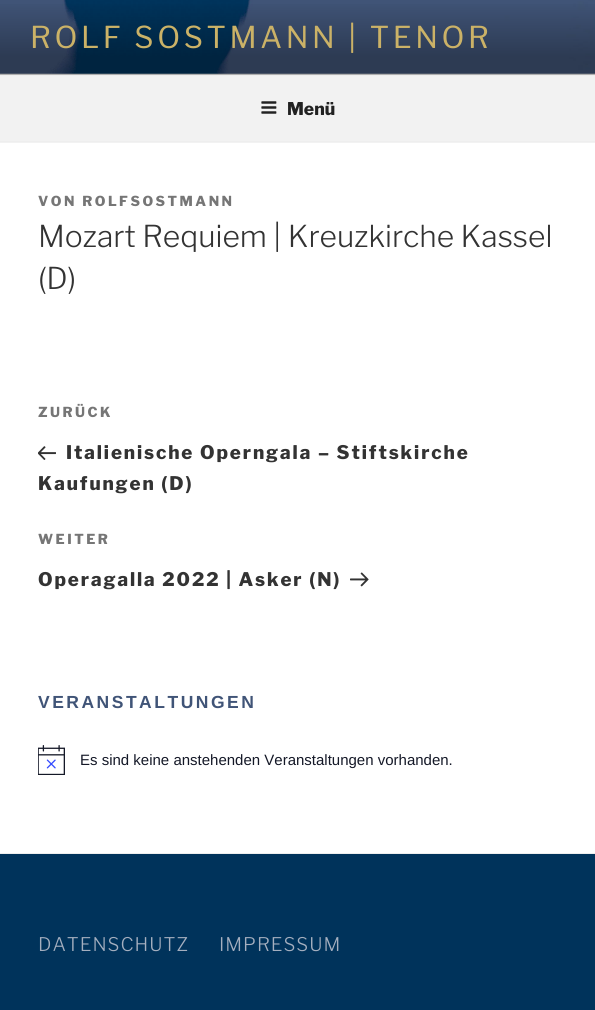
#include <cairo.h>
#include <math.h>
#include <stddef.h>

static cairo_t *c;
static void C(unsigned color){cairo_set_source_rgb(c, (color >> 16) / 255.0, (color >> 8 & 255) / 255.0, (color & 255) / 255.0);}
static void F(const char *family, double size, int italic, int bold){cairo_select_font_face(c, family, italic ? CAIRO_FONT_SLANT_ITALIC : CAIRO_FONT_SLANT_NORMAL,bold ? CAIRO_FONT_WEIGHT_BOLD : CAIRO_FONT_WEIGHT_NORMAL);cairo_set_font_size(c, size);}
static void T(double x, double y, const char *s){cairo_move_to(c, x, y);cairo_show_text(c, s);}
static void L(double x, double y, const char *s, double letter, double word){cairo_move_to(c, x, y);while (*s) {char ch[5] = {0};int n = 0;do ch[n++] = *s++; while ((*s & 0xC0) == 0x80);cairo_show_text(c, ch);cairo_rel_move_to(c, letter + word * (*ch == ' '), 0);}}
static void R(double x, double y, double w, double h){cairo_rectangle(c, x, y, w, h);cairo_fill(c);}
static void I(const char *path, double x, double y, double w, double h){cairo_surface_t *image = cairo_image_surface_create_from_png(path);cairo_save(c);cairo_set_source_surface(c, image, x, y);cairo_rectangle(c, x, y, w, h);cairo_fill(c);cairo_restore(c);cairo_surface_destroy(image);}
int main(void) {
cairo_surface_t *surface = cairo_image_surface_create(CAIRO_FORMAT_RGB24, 595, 1010);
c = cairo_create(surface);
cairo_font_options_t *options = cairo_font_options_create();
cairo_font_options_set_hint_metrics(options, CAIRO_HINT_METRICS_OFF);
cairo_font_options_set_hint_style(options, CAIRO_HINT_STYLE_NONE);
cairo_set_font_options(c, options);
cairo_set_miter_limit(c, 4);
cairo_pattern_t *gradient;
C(0xffffff);
cairo_paint(c);
C(0xfafafa);
R(0,73,595,2);
I("1.png",0,0,595,74);
gradient = cairo_pattern_create_linear(298,0,298,75);
cairo_pattern_add_color_stop_rgba(gradient,0,0,0,0,0);
cairo_pattern_add_color_stop_rgba(gradient,.75,0,0,0,.3);
cairo_pattern_add_color_stop_rgba(gradient,1,0,0,0,.3);
cairo_set_source(c,gradient);
cairo_pattern_destroy(gradient);
R(0,4,595,71);
F("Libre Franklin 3 Thin",30,0,0);
C(0xcbb267);
L(30,48,"ROLF SOSTMANN | TENOR",3.6,0);
C(0xf2f2f2);
R(0,76,595,67);
C(0xeeeeee);
R(0,75,595,1);
R(0,141,595,1);
I("2.png",261,101,16,13);
F("Libre Franklin Thin",17.5,0,0);
C(0x222222);
T(287,115,"Menü");
F("Libre Franklin Thin",13.75,0,0);
C(0x767676);
L(38,206,"VON ROLFSOSTMANN",2.5,0);
F("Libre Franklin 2 Thin",30,0,0);
C(0x333333);
T(38,247,"Mozart Requiem | Kreuzkirche Kassel");
T(38,289,"(D)");
F("Libre Franklin Thin",13.75,0,0);
C(0x767676);
L(38,417,"ZURÜCK",2.5,0);
I("3.png",38,446,18,14);
F("Libre Franklin Thin",18.75,0,0);
C(0x333333);
L(66,459,"Italienische Operngala – Stiftskirche",1.9,0);
L(38,490,"Kaufungen (D)",1.9,0);
F("Libre Franklin Thin",13.75,0,0);
C(0x767676);
L(38,544,"WEITER",2.5,0);
F("Libre Franklin Thin",18.75,0,0);
C(0x333333);
L(38,586,"Operagalla 2022 | Asker (N)",1.9,0);
I("4.png",350,572,19,15);
F("Liberation Sans",17.5,0,1);
C(0x405477);
L(38,708,"VERANSTALTUNGEN",2.5,0);
I("5.png",38,745,27,30);
F("Liberation Sans",15,0,0);
C(0x141827);
T(80,765,"Es sind keine anstehenden Veranstaltungen vorhanden.");
C(0x00335b);
R(0,854,595,156);
C(0xeeeeee);
R(0,853,595,1);
F("Libre Franklin 2 Thin",18.75,0,0);
C(0xa5afbf);
L(38,951,"DATENSCHUTZ",1,0);
L(219,951,"IMPRESSUM",1,0);
cairo_surface_write_to_png(surface, "o.png");
cairo_font_options_destroy(options);
cairo_destroy(c);
cairo_surface_destroy(surface);
return 0;
}
